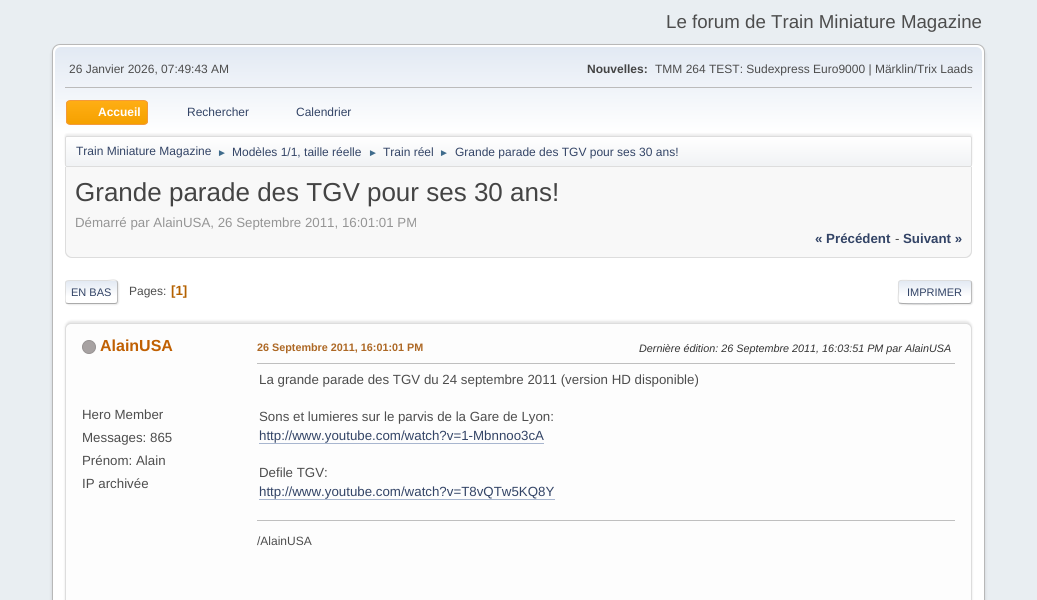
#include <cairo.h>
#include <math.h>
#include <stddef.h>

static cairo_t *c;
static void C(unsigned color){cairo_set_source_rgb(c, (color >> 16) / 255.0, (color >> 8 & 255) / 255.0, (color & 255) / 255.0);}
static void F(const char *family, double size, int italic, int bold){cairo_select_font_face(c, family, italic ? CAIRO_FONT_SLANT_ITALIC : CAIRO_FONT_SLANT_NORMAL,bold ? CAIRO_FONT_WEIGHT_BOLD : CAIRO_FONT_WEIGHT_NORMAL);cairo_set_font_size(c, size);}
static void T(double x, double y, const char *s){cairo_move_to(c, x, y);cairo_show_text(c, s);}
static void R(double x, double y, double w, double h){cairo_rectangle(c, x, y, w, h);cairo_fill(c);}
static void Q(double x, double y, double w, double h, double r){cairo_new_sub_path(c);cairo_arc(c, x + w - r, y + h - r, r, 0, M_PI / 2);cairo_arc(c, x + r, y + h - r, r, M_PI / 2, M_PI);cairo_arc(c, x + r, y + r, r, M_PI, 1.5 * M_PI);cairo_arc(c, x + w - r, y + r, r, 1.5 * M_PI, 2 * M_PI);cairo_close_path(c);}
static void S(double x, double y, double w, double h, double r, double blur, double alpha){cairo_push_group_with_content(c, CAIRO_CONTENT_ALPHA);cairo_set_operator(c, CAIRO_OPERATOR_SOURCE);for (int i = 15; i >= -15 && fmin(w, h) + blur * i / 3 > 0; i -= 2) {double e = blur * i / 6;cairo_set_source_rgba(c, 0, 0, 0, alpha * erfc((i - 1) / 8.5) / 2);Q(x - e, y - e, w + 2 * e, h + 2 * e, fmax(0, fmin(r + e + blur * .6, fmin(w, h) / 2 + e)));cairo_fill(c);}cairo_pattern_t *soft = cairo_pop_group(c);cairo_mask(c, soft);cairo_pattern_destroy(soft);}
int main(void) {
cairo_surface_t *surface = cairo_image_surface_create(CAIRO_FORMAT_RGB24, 1037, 600);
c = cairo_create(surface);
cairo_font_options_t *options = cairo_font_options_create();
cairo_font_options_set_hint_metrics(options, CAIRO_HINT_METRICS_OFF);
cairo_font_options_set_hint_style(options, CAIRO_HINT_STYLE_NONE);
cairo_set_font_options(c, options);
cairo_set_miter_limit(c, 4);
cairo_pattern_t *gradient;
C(0xe9eef2);
cairo_paint(c);
F("Liberation Sans",18.7,0,0);
C(0x4d4d4d);
T(666,28,"Le forum de Train Miniature Magazine");
C(0x000000);
S(52,46,933,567,8,1.5,.14);
C(0xffffff);
Q(52.5,44.5,932,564,7.5);
cairo_fill_preserve(c);
C(0xb8b8b8);
cairo_set_line_width(c,1);
cairo_stroke(c);
gradient = cairo_pattern_create_linear(519,47,519,169);
cairo_pattern_add_color_stop_rgba(gradient,0,0.886,0.914,0.953,1);
cairo_pattern_add_color_stop_rgba(gradient,.7,1,1,1,1);
cairo_set_source(c,gradient);
cairo_pattern_destroy(gradient);
cairo_new_path(c);
cairo_move_to(c,61,47);
cairo_line_to(c,976,47);
cairo_curve_to(c,979.5,47,982,49.5,982,53);
cairo_line_to(c,982,169);
cairo_line_to(c,55,169);
cairo_line_to(c,55,53);
cairo_curve_to(c,55,49.5,57.5,47,61,47);
cairo_close_path(c);
cairo_fill(c);
C(0xbbbbbb);
R(65,87,907,1);
F("Liberation Sans",12,0,0);
C(0x4d4d4d);
T(69,73,"26 Janvier 2026, 07:49:43 AM");
F("Liberation Sans",12,0,1);
C(0x444444);
T(587,73,"Nouvelles:");
F("Liberation Sans",12,0,0);
C(0x4d4d4d);
T(655,73,"TMM 264 TEST: Sudexpress Euro9000 | Märklin/Trix Laads");
cairo_save(c);
Q(66,100,82,25,4);
cairo_clip(c);
gradient = cairo_pattern_create_linear(107,101,107,124);
cairo_pattern_add_color_stop_rgba(gradient,0,1,0.682,0.078,1);
cairo_pattern_add_color_stop_rgba(gradient,1,0.961,0.631,0,1);
cairo_set_source(c,gradient);
cairo_pattern_destroy(gradient);
R(66,101,82,23);
cairo_restore(c);
Q(66.5,100.5,81,24,3.5);
C(0xf49a3a);
cairo_stroke(c);
F("Liberation Sans",12,0,1);
C(0xffffff);
T(98,116,"Accueil");
F("Liberation Sans",12,0,0);
C(0x334466);
T(187,116,"Rechercher");
T(296,116,"Calendrier");
C(0x000000);
S(65,134,907,31,2,1,.08);
cairo_save(c);
Q(65,136,907,31,2);
cairo_clip(c);
gradient = cairo_pattern_create_linear(519,137,519,166);
cairo_pattern_add_color_stop_rgba(gradient,0,1,1,1,1);
cairo_pattern_add_color_stop_rgba(gradient,.95,0.945,0.953,0.961,1);
cairo_set_source(c,gradient);
cairo_pattern_destroy(gradient);
R(65,137,907,29);
cairo_restore(c);
Q(65.5,136.5,906,30,1.5);
C(0xdddddd);
cairo_stroke(c);
C(0x334466);
T(76,155,"Train Miniature Magazine");
F("Liberation Sans",10,0,0);
C(0x3f6b8c);
T(217,156,"►");
F("Liberation Sans",12,0,0);
C(0x334466);
T(232,156,"Modèles 1/1, taille réelle");
F("Liberation Sans",10,0,0);
C(0x3f6b8c);
T(368,156,"►");
F("Liberation Sans",12,0,0);
C(0x334466);
T(383,156,"Train réel");
F("Liberation Sans",10,0,0);
C(0x3f6b8c);
T(439,156,"►");
F("Liberation Sans",12,0,0);
C(0x334466);
T(455,156,"Grande parade des TGV pour ses 30 ans!");
C(0xf8f8f8);
cairo_new_path(c);
cairo_move_to(c,65,167);
cairo_line_to(c,972,167);
cairo_line_to(c,972,251);
cairo_curve_to(c,972,255,969,258,965,258);
cairo_line_to(c,72,258);
cairo_curve_to(c,68,258,65,255,65,251);
cairo_close_path(c);
cairo_fill(c);
C(0xdddddd);
cairo_set_fill_rule(c,CAIRO_FILL_RULE_EVEN_ODD);
cairo_new_path(c);
cairo_move_to(c,65,167);
cairo_line_to(c,972,167);
cairo_line_to(c,972,251);
cairo_curve_to(c,972,255,969,258,965,258);
cairo_line_to(c,72,258);
cairo_curve_to(c,68,258,65,255,65,251);
cairo_close_path(c);
cairo_move_to(c,66,167);
cairo_line_to(c,971,167);
cairo_line_to(c,971,251);
cairo_curve_to(c,971,254,968,257,965,257);
cairo_line_to(c,72,257);
cairo_curve_to(c,69,257,66,254,66,251);
cairo_close_path(c);
cairo_fill(c);
F("Liberation Sans",26,0,0);
C(0x444444);
T(75,201,"Grande parade des TGV pour ses 30 ans!");
F("Liberation Sans",13.3,0,0);
C(0x959595);
T(75,227,"Démarré par AlainUSA, 26 Septembre 2011, 16:01:01 PM");
F("Liberation Sans",13.3,0,1);
C(0x334466);
T(815,243,"« Précédent");
F("Liberation Sans",13.3,0,0);
C(0x4d4d4d);
T(895,243,"-");
F("Liberation Sans",13.3,0,1);
C(0x334466);
T(903,243,"Suivant »");
C(0xdddddd);
S(66,281,53,24,3,.5,.57);
C(0xffffff);
Q(65,280,53,24,3);
cairo_fill(c);
cairo_save(c);
cairo_set_fill_rule(c,CAIRO_FILL_RULE_WINDING);
Q(65,280,53,24,3);
cairo_clip(c);
gradient = cairo_pattern_create_linear(92,281,92,303);
cairo_pattern_add_color_stop_rgba(gradient,0,0.886,0.914,0.953,1);
cairo_pattern_add_color_stop_rgba(gradient,.7,1,1,1,1);
cairo_set_source(c,gradient);
cairo_pattern_destroy(gradient);
R(65,281,53,22);
cairo_restore(c);
cairo_new_path(c);
cairo_move_to(c,117,281);
cairo_curve_to(c,117,281.5,117.5,282.5,117.5,283);
cairo_line_to(c,117.5,301);
cairo_curve_to(c,117.5,301.5,117,302.5,117,303);
C(0xbbbbbb);
cairo_stroke(c);
cairo_new_path(c);
cairo_move_to(c,117,303);
cairo_line_to(c,115,303.5);
cairo_line_to(c,68,303.5);
cairo_line_to(c,66,303);
C(0xaaaaaa);
cairo_stroke(c);
cairo_save(c);
cairo_set_fill_rule(c,CAIRO_FILL_RULE_WINDING);
cairo_rectangle(c,65,273,907,38);
cairo_clip(c);
cairo_new_path(c);
cairo_move_to(c,66,303);
cairo_curve_to(c,64.5,301,65.5,294,65.5,292);
cairo_curve_to(c,65.5,279.5,63.5,280.5,76,280.5);
cairo_line_to(c,107,280.5);
cairo_curve_to(c,110.5,280.5,114.5,279,117,281);
C(0xdddddd);
cairo_stroke(c);
cairo_restore(c);
F("Liberation Sans",11,0,0);
C(0x334466);
T(71,296,"EN BAS");
F("Liberation Sans",12,0,0);
C(0x4d4d4d);
T(129,295,"Pages:");
F("Liberation Sans",13.3,0,1);
C(0xb46100);
T(171,295,"[1]");
cairo_save(c);
cairo_new_path(c);
cairo_move_to(c,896,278);
cairo_line_to(c,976,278);
cairo_line_to(c,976,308);
cairo_line_to(c,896,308);
cairo_close_path(c);
cairo_move_to(c,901,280);
cairo_line_to(c,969,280);
cairo_curve_to(c,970.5,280,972,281.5,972,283);
cairo_line_to(c,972,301);
cairo_curve_to(c,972,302.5,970.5,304,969,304);
cairo_line_to(c,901,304);
cairo_curve_to(c,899.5,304,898,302.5,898,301);
cairo_line_to(c,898,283);
cairo_curve_to(c,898,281.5,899.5,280,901,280);
cairo_close_path(c);
cairo_clip(c);
C(0xdddddd);
S(899,281,74,24,3,.5,.57);
cairo_restore(c);
cairo_save(c);
cairo_set_fill_rule(c,CAIRO_FILL_RULE_WINDING);
Q(898,280,74,24,3);
cairo_clip(c);
gradient = cairo_pattern_create_linear(935,281,935,303);
cairo_pattern_add_color_stop_rgba(gradient,0,0.886,0.914,0.953,1);
cairo_pattern_add_color_stop_rgba(gradient,.7,1,1,1,1);
cairo_set_source(c,gradient);
cairo_pattern_destroy(gradient);
R(898,281,74,22);
gradient = cairo_pattern_create_linear(935,303,935,325);
cairo_pattern_add_color_stop_rgba(gradient,0,0.886,0.914,0.953,1);
cairo_pattern_add_color_stop_rgba(gradient,.7,1,1,1,1);
cairo_set_source(c,gradient);
cairo_pattern_destroy(gradient);
R(898,303,74,1);
cairo_restore(c);
cairo_new_path(c);
cairo_move_to(c,971,281);
cairo_curve_to(c,971,281.5,971.5,282.5,971.5,283);
cairo_line_to(c,971.5,301);
cairo_curve_to(c,971.5,301.5,971,302.5,971,303);
C(0xbbbbbb);
cairo_stroke(c);
cairo_new_path(c);
cairo_move_to(c,971,303);
cairo_line_to(c,969,303.5);
cairo_line_to(c,957.5,303.5);
cairo_curve_to(c,951,303.5,901.5,304.5,899.5,303);
cairo_line_to(c,899,303);
C(0xaaaaaa);
cairo_stroke(c);
cairo_new_path(c);
cairo_move_to(c,899,303);
cairo_curve_to(c,897.5,301,898.5,294,898.5,292);
cairo_curve_to(c,898.5,278,896.5,280.5,912.5,280.5);
cairo_line_to(c,969,280.5);
cairo_line_to(c,971,281);
C(0xdddddd);
cairo_stroke(c);
F("Liberation Sans",11,0,0);
C(0x334466);
T(907,296,"IMPRIMER");
C(0x000000);
S(65,321,907,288,6,1,.1);
C(0xfdfdfd);
Q(65.5,323.5,906,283,5.5);
cairo_fill_preserve(c);
C(0xdddddd);
cairo_stroke(c);
C(0xa7a2a2);
cairo_arc(c,89,347,6.5,0,2 * M_PI);
cairo_fill_preserve(c);
C(0x969292);
cairo_stroke(c);
F("Liberation Sans",16,0,1);
C(0xc06002);
T(100,351,"AlainUSA");
F("Liberation Sans",13.3,0,0);
C(0x4d4d4d);
T(82,419,"Hero Member");
T(82,442,"Messages: 865");
T(82,465,"Prénom: Alain");
T(82,488,"IP archivée");
F("Liberation Sans",10.8,0,1);
C(0xad6825);
T(257,351,"26 Septembre 2011, 16:01:01 PM");
F("Liberation Sans",10.8,1,0);
C(0x333333);
T(639,352,"Dernière édition: 26 Septembre 2011, 16:03:51 PM par AlainUSA");
C(0xbfbfbf);
R(257,363,698,1);
F("Liberation Sans",13.3,0,0);
C(0x4d4d4d);
T(259,384,"La grande parade des TGV du 24 septembre 2011 (version HD disponible)");
T(259,421,"Sons et lumieres sur le parvis de la Gare de Lyon:");
C(0x334466);
T(259,440,"http://www.youtube.com/watch?v=1-Mbnnoo3cA");
C(0xa8b6cf);
R(259,443,285,1);
C(0x4d4d4d);
T(259,477,"Defile TGV:");
C(0x334466);
T(259,496,"http://www.youtube.com/watch?v=T8vQTw5KQ8Y");
C(0xa8b6cf);
R(259,499,296,1);
C(0xbfbfbf);
R(257,520,698,1);
F("Liberation Sans",12,0,0);
C(0x4d4d4d);
T(257,545,"/AlainUSA");
cairo_surface_write_to_png(surface, "o.png");
cairo_font_options_destroy(options);
cairo_destroy(c);
cairo_surface_destroy(surface);
return 0;
}
